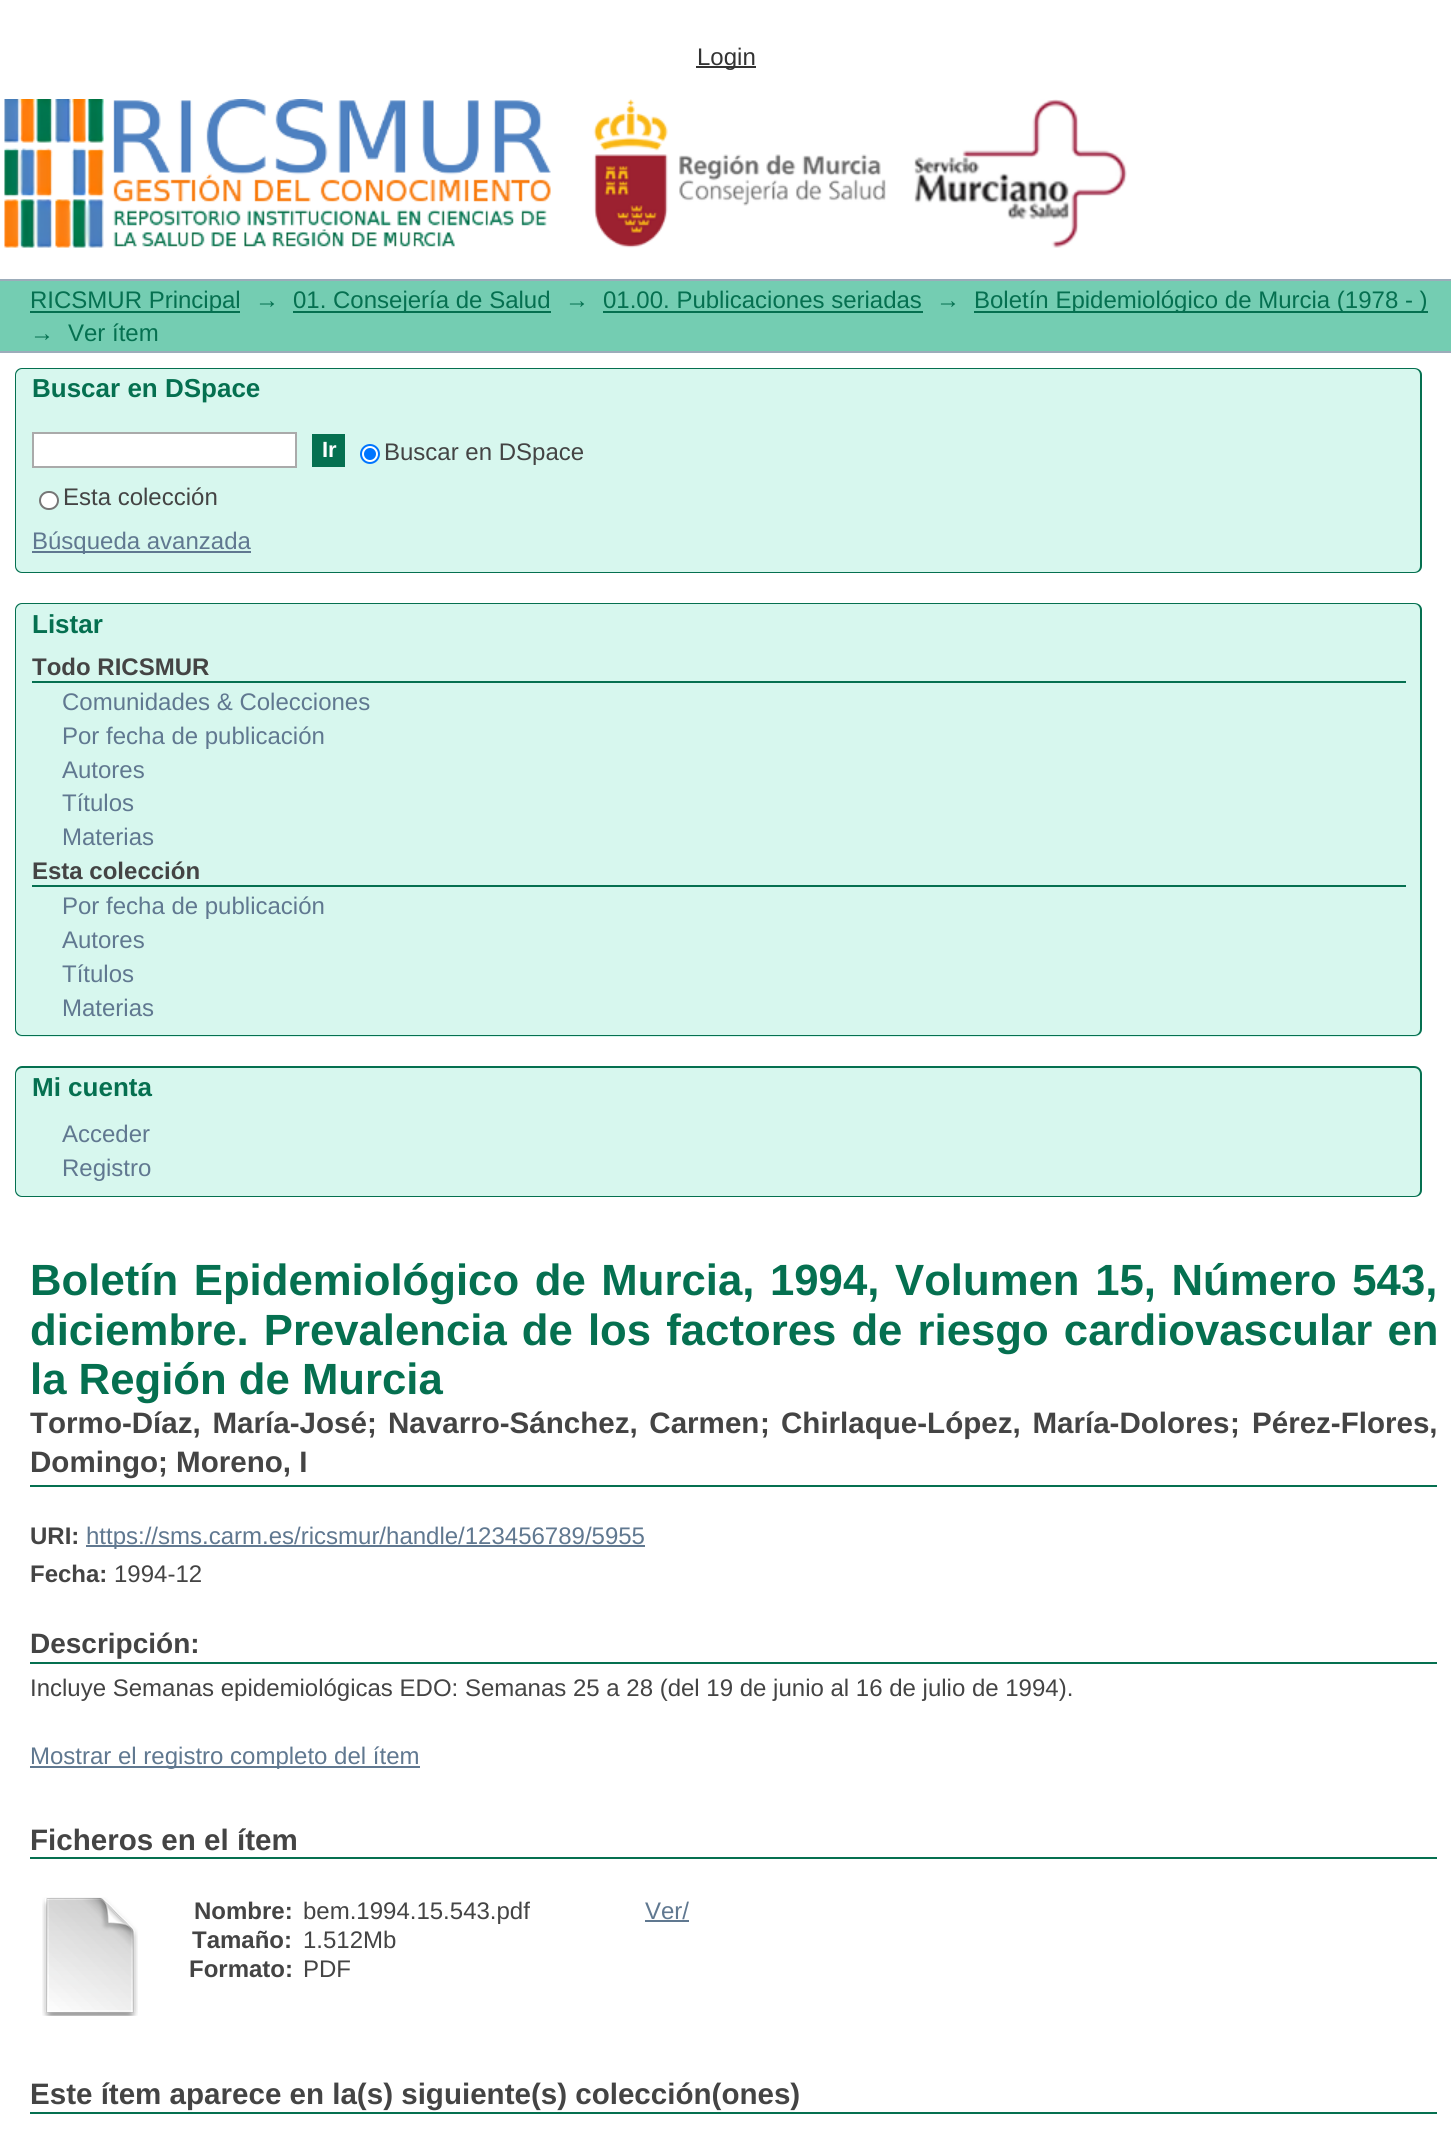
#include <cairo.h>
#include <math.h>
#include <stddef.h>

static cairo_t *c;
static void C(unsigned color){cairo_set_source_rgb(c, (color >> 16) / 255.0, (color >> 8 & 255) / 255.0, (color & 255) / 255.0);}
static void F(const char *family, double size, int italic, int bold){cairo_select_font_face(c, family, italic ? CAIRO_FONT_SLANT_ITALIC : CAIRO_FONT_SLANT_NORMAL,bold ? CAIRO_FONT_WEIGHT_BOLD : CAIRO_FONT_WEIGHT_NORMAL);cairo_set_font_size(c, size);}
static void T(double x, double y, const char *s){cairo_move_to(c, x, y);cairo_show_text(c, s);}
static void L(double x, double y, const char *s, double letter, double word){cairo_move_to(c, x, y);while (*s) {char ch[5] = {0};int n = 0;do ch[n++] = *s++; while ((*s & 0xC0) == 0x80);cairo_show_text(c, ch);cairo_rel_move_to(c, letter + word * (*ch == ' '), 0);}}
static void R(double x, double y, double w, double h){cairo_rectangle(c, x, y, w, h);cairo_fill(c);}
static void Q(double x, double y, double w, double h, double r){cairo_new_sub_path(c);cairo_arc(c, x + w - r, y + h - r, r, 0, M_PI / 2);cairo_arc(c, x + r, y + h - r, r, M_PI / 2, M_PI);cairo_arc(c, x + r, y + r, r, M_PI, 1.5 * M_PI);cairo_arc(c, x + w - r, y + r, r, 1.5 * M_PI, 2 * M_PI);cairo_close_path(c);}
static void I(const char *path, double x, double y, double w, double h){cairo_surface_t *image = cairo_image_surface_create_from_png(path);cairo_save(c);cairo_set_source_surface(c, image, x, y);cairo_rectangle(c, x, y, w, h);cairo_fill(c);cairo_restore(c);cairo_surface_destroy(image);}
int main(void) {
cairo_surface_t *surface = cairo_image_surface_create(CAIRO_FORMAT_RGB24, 1451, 2141);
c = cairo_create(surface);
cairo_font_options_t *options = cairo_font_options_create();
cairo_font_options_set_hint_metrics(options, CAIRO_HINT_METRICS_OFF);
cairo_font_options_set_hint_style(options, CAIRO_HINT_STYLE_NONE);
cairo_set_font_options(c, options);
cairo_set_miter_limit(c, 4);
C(0xffffff);
cairo_paint(c);
C(0x333333);
R(696,66,60,2);
F("Liberation Sans",24,0,0);
T(697,65,"Login");
I("1.png",4,99,1123,149);
C(0x74cdb2);
R(0,281,1451,70);
C(0x9cacba);
R(0,279,1451,2);
R(0,351,1451,2);
C(0x057050);
R(30,311,210,2);
T(30,308,"RICSMUR Principal");
T(255,308,"→");
R(293,311,258,2);
T(293,308,"01. Consejería de Salud");
T(565,308,"→");
T(603,308,"01.00. Publicaciones seriadas");
R(603,311,320,2);
T(936,308,"→");
R(974,311,454,2);
T(974,308,"Boletín Epidemiológico de Murcia (1978 - )");
T(30,341,"→");
T(68,341,"Ver ítem");
C(0xd7f7ee);
cairo_new_path(c);
cairo_move_to(c,23,368);
cairo_line_to(c,1414,368);
cairo_curve_to(c,1418.5,368,1422,371.5,1422,376);
cairo_line_to(c,1422,410);
cairo_line_to(c,15,410);
cairo_line_to(c,15,376);
cairo_curve_to(c,15,371.5,18.5,368,23,368);
cairo_close_path(c);
cairo_fill(c);
C(0x057050);
cairo_set_fill_rule(c,CAIRO_FILL_RULE_EVEN_ODD);
cairo_new_path(c);
cairo_move_to(c,22,368);
cairo_line_to(c,1414,368);
cairo_curve_to(c,1419,368,1422,371,1422,375);
cairo_line_to(c,1422,410);
cairo_line_to(c,15,410);
cairo_line_to(c,15,375);
cairo_curve_to(c,15,371,18,368,22,368);
cairo_close_path(c);
cairo_move_to(c,22,369);
cairo_line_to(c,1414,369);
cairo_curve_to(c,1418,369,1420,372,1420,375);
cairo_line_to(c,1420,410);
cairo_line_to(c,16,410);
cairo_line_to(c,16,375);
cairo_curve_to(c,16,372,19,369,22,369);
cairo_close_path(c);
cairo_fill(c);
F("Liberation Sans",26,0,1);
T(32,397,"Buscar en DSpace");
C(0xd7f7ee);
cairo_new_path(c);
cairo_move_to(c,15,410);
cairo_line_to(c,1422,410);
cairo_line_to(c,1422,565);
cairo_curve_to(c,1422,569.5,1418.5,573,1414,573);
cairo_line_to(c,23,573);
cairo_curve_to(c,18.5,573,15,569.5,15,565);
cairo_close_path(c);
cairo_fill(c);
C(0x057050);
cairo_new_path(c);
cairo_move_to(c,15,410);
cairo_line_to(c,1422,410);
cairo_line_to(c,1422,566);
cairo_curve_to(c,1422,570,1419,573,1414,573);
cairo_line_to(c,22,573);
cairo_curve_to(c,18,573,15,570,15,566);
cairo_close_path(c);
cairo_move_to(c,16,410);
cairo_line_to(c,1420,410);
cairo_line_to(c,1420,566);
cairo_curve_to(c,1420,569,1418,572,1414,572);
cairo_line_to(c,22,572);
cairo_curve_to(c,19,572,16,569,16,566);
cairo_close_path(c);
cairo_fill(c);
C(0xffffff);
cairo_rectangle(c,33,433,263,34);
cairo_fill_preserve(c);
C(0xaaaaaa);
cairo_stroke(c);
C(0x057050);
R(312,434,33,33);
F("Liberation Sans",22,0,1);
C(0xffffff);
T(322,457,"Ir");
cairo_new_path(c);
cairo_arc(c,370,454,9,0,2 * M_PI);
cairo_fill_preserve(c);
C(0x0075ff);
cairo_stroke(c);
cairo_arc(c,370,454,6,0,2 * M_PI);
cairo_fill(c);
F("Liberation Sans",24,0,0);
C(0x444444);
T(384,460,"Buscar en DSpace");
C(0xffffff);
Q(40,492,18,17,8.5);
cairo_fill_preserve(c);
C(0x767676);
cairo_stroke(c);
C(0x444444);
T(63,505,"Esta colección");
C(0x607890);
R(32,551,219,2);
T(32,549,"Búsqueda avanzada");
C(0xd7f7ee);
cairo_new_path(c);
cairo_move_to(c,23,603);
cairo_line_to(c,1414,603);
cairo_curve_to(c,1418.5,603,1422,606.5,1422,611);
cairo_line_to(c,1422,645);
cairo_line_to(c,15,645);
cairo_line_to(c,15,611);
cairo_curve_to(c,15,606.5,18.5,603,23,603);
cairo_close_path(c);
cairo_fill(c);
C(0x057050);
cairo_new_path(c);
cairo_move_to(c,22,603);
cairo_line_to(c,1414,603);
cairo_curve_to(c,1419,603,1422,606,1422,610);
cairo_line_to(c,1422,645);
cairo_line_to(c,15,645);
cairo_line_to(c,15,610);
cairo_curve_to(c,15,606,18,603,22,603);
cairo_close_path(c);
cairo_move_to(c,22,604);
cairo_line_to(c,1414,604);
cairo_curve_to(c,1418,604,1420,607,1420,610);
cairo_line_to(c,1420,645);
cairo_line_to(c,16,645);
cairo_line_to(c,16,610);
cairo_curve_to(c,16,607,19,604,22,604);
cairo_close_path(c);
cairo_fill(c);
F("Liberation Sans",26,0,1);
T(32,633,"Listar");
C(0xd7f7ee);
cairo_new_path(c);
cairo_move_to(c,15,645);
cairo_line_to(c,1422,645);
cairo_line_to(c,1422,1029);
cairo_curve_to(c,1422,1033.5,1418.5,1037,1414,1037);
cairo_line_to(c,23,1037);
cairo_curve_to(c,18.5,1037,15,1033.5,15,1029);
cairo_close_path(c);
cairo_fill(c);
C(0x057050);
cairo_new_path(c);
cairo_move_to(c,15,645);
cairo_line_to(c,1422,645);
cairo_line_to(c,1422,1029);
cairo_curve_to(c,1422,1033,1419,1036,1414,1036);
cairo_line_to(c,22,1036);
cairo_curve_to(c,18,1036,15,1033,15,1029);
cairo_close_path(c);
cairo_move_to(c,16,645);
cairo_line_to(c,1420,645);
cairo_line_to(c,1420,1029);
cairo_curve_to(c,1420,1032,1418,1035,1414,1035);
cairo_line_to(c,22,1035);
cairo_curve_to(c,19,1035,16,1032,16,1029);
cairo_close_path(c);
cairo_fill(c);
R(32,681,1374,2);
F("Liberation Sans",24,0,1);
C(0x444444);
T(32,675,"Todo RICSMUR");
F("Liberation Sans",24,0,0);
C(0x607890);
T(62,710,"Comunidades & Colecciones");
T(62,744,"Por fecha de publicación");
T(62,778,"Autores");
T(62,811,"Títulos");
T(62,845,"Materias");
C(0x057050);
R(32,885,1374,2);
F("Liberation Sans",24,0,1);
C(0x444444);
T(32,879,"Esta colección");
F("Liberation Sans",24,0,0);
C(0x607890);
T(62,914,"Por fecha de publicación");
T(62,948,"Autores");
T(62,982,"Títulos");
T(62,1016,"Materias");
C(0xd7f7ee);
cairo_new_path(c);
cairo_move_to(c,23,1067);
cairo_line_to(c,1414,1067);
cairo_curve_to(c,1418.5,1067,1422,1070.5,1422,1075);
cairo_line_to(c,1422,1109);
cairo_line_to(c,15,1109);
cairo_line_to(c,15,1075);
cairo_curve_to(c,15,1070.5,18.5,1067,23,1067);
cairo_close_path(c);
cairo_fill(c);
C(0x057050);
cairo_new_path(c);
cairo_move_to(c,22,1066);
cairo_line_to(c,1414,1066);
cairo_curve_to(c,1419,1066,1422,1070,1422,1074);
cairo_line_to(c,1422,1108);
cairo_line_to(c,15,1108);
cairo_line_to(c,15,1074);
cairo_curve_to(c,15,1070,18,1066,22,1066);
cairo_close_path(c);
cairo_move_to(c,22,1068);
cairo_line_to(c,1414,1068);
cairo_curve_to(c,1418,1068,1420,1071,1420,1074);
cairo_line_to(c,1420,1108);
cairo_line_to(c,16,1108);
cairo_line_to(c,16,1074);
cairo_curve_to(c,16,1071,19,1068,22,1068);
cairo_close_path(c);
cairo_fill(c);
F("Liberation Sans",26,0,1);
T(32,1096,"Mi cuenta");
C(0xd7f7ee);
cairo_new_path(c);
cairo_move_to(c,15,1109);
cairo_line_to(c,1422,1109);
cairo_line_to(c,1422,1189);
cairo_curve_to(c,1422,1193.5,1418.5,1197,1414,1197);
cairo_line_to(c,23,1197);
cairo_curve_to(c,18.5,1197,15,1193.5,15,1189);
cairo_close_path(c);
cairo_fill(c);
C(0x057050);
cairo_new_path(c);
cairo_move_to(c,15,1108);
cairo_line_to(c,1422,1108);
cairo_line_to(c,1422,1190);
cairo_curve_to(c,1422,1194,1419,1197,1414,1197);
cairo_line_to(c,22,1197);
cairo_curve_to(c,18,1197,15,1194,15,1190);
cairo_close_path(c);
cairo_move_to(c,16,1108);
cairo_line_to(c,1420,1108);
cairo_line_to(c,1420,1190);
cairo_curve_to(c,1420,1193,1418,1196,1414,1196);
cairo_line_to(c,22,1196);
cairo_curve_to(c,19,1196,16,1193,16,1190);
cairo_close_path(c);
cairo_fill(c);
F("Liberation Sans",24,0,0);
C(0x607890);
T(62,1142,"Acceder");
T(62,1176,"Registro");
F("Liberation Sans",43.7,0,1);
C(0x057050);
L(30,1295,"Boletín Epidemiológico de Murcia, 1994, Volumen 15, Número 543,",0,3.5);
L(30,1345,"diciembre. Prevalencia de los factores de riesgo cardiovascular en",0,3);
T(30,1394,"la Región de Murcia");
R(30,1485,1407,2);
F("Liberation Sans",29.55,0,1);
C(0x444444);
L(30,1433,"Tormo-Díaz, María-José",0,3.5);
T(367,1433,";");
L(388,1433,"Navarro-Sánchez, Carmen",0,3.5);
T(760,1433,";");
L(781,1433,"Chirlaque-López, María-Dolores",0,3.5);
T(1230,1433,";");
T(1252,1433,"Pérez-Flores,");
T(30,1472,"Domingo; Moreno, I");
F("Liberation Sans",24,0,1);
T(30,1544,"URI:");
C(0x607890);
R(86,1545,559,2);
F("Liberation Sans",24,0,0);
T(86,1544,"https://sms.carm.es/ricsmur/handle/123456789/5955");
F("Liberation Sans",24,0,1);
C(0x444444);
T(30,1582,"Fecha:");
F("Liberation Sans",24,0,0);
T(114,1582,"1994-12");
C(0x057050);
R(30,1662,1407,2);
F("Liberation Sans",28,0,1);
C(0x444444);
T(30,1653,"Descripción:");
F("Liberation Sans",24,0,0);
T(30,1696,"Incluye Semanas epidemiológicas EDO: Semanas 25 a 28 (del 19 de junio al 16 de julio de 1994).");
C(0x607890);
R(30,1766,390,2);
T(30,1764,"Mostrar el registro completo del ítem");
C(0x057050);
R(30,1857,1407,2);
F("Liberation Sans",29.55,0,1);
C(0x444444);
T(30,1850,"Ficheros en el ítem");
I("2.png",42,1897,96,119);
F("Liberation Sans",24,0,1);
T(194,1919,"Nombre:");
F("Liberation Sans",24,0,0);
T(303,1919,"bem.1994.15.543.pdf");
F("Liberation Sans",24,0,1);
T(192,1948,"Tamaño:");
F("Liberation Sans",24,0,0);
T(303,1948,"1.512Mb");
F("Liberation Sans",24,0,1);
T(189,1977,"Formato:");
F("Liberation Sans",24,0,0);
T(303,1977,"PDF");
C(0x607890);
T(645,1919,"Ver/");
R(645,1920,44,2);
C(0x057050);
R(30,2112,1407,2);
F("Liberation Sans",29.55,0,1);
C(0x444444);
T(30,2104,"Este ítem aparece en la(s) siguiente(s) colección(ones)");
cairo_surface_write_to_png(surface, "o.png");
cairo_font_options_destroy(options);
cairo_destroy(c);
cairo_surface_destroy(surface);
return 0;
}
